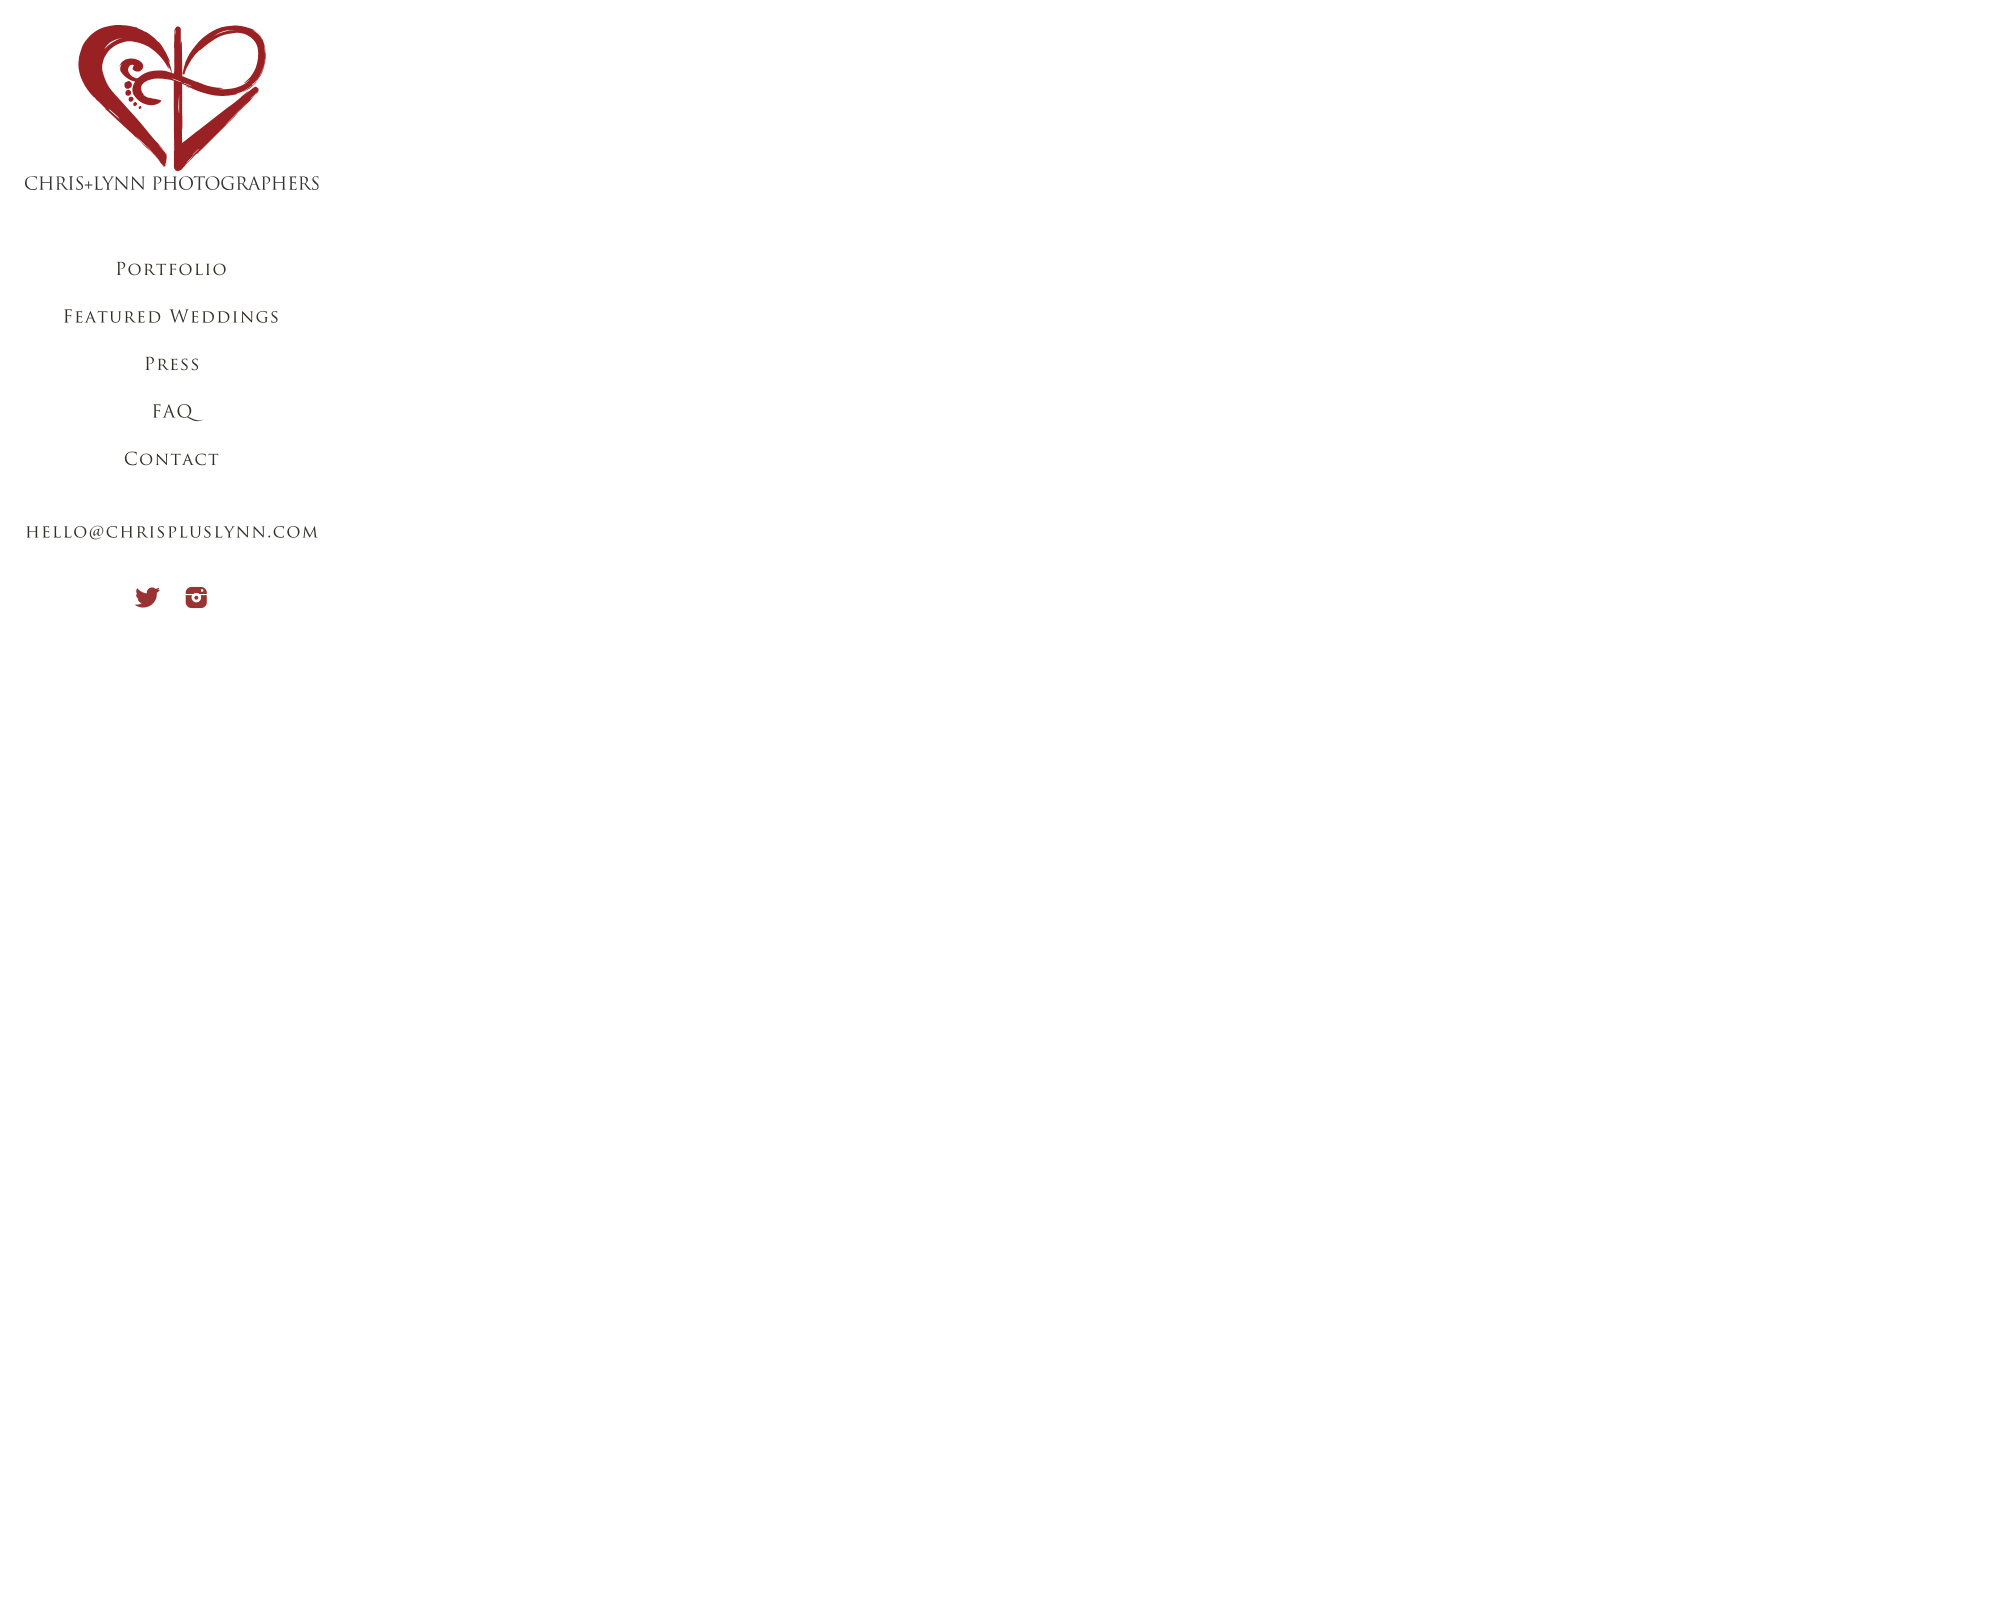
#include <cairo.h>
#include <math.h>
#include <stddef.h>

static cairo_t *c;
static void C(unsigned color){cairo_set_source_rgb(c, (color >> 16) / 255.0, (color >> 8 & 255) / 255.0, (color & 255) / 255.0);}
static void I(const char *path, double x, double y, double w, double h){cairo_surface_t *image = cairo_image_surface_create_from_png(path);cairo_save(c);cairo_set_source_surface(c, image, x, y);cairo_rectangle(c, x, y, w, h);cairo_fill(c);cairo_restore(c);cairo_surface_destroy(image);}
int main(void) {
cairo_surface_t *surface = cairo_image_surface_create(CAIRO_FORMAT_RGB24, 1995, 1601);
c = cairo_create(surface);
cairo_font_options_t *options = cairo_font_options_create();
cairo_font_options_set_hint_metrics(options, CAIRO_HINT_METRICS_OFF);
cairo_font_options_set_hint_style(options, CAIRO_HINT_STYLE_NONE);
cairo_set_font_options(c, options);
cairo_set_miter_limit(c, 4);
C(0xffffff);
cairo_paint(c);
I("1.png",25,25,294,165);
I("2.png",116,261,110,15);
I("3.png",64,309,214,14);
I("4.png",145,356,54,15);
I("5.png",153,404,50,18);
I("6.png",124,451,95,15);
I("7.png",26,525,292,15);
I("8.png",135,587,25,21);
I("9.png",185,586,22,23);
cairo_surface_write_to_png(surface, "o.png");
cairo_font_options_destroy(options);
cairo_destroy(c);
cairo_surface_destroy(surface);
return 0;
}
